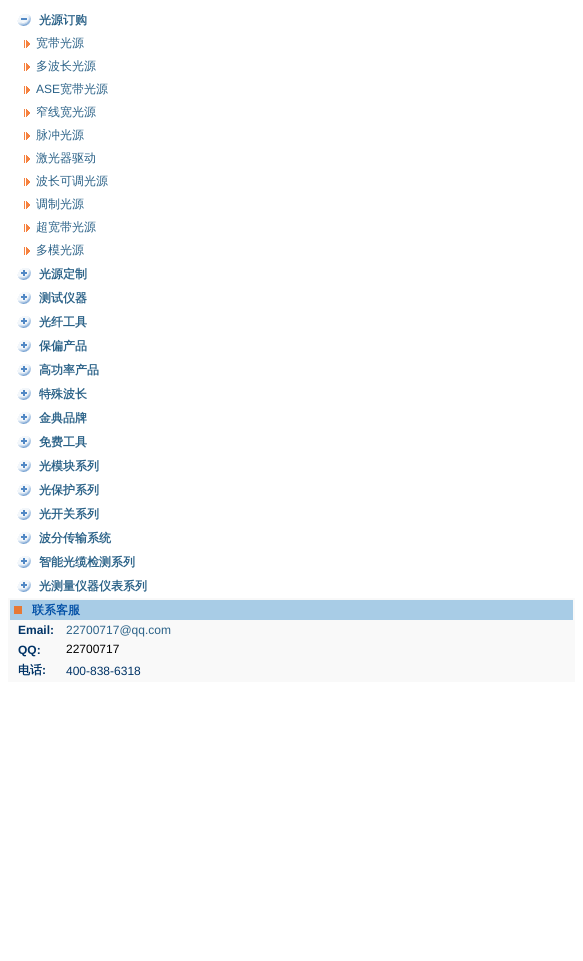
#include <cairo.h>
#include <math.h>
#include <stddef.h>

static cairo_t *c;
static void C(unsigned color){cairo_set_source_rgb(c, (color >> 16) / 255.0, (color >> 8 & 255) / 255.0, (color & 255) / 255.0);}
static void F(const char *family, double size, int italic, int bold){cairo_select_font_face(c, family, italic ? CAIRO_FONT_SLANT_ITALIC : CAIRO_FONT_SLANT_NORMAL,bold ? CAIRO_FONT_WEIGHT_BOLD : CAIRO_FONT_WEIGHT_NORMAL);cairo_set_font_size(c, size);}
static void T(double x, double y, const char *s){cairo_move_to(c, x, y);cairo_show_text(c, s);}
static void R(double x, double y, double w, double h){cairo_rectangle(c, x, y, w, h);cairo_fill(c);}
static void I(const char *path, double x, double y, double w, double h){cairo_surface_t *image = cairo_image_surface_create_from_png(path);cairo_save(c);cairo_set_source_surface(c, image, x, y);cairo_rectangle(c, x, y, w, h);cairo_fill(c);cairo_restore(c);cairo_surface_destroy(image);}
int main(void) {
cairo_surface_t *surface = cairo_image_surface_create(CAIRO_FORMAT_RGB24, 583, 961);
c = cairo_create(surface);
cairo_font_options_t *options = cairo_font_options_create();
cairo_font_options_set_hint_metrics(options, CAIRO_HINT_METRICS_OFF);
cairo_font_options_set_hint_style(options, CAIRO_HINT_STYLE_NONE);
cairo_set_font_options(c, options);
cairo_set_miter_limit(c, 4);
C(0xffffff);
cairo_paint(c);
I("1.png",17,14,14,12);
F("WenQuanYi Zen Hei",12,0,1);
C(0x2b6288);
T(39,24,"光源订购");
I("2.png",24,40,6,8);
F("WenQuanYi Zen Hei Medium",12,0,0);
T(36,47,"宽带光源");
I("2.png",24,63,6,8);
T(36,70,"多波长光源");
I("2.png",24,86,6,8);
F("Liberation Sans",12,0,0);
T(36,93,"ASE");
F("WenQuanYi Zen Hei Medium",12,0,0);
T(60,93,"宽带光源");
I("2.png",24,109,6,8);
T(36,116,"窄线宽光源");
I("2.png",24,132,6,8);
T(36,139,"脉冲光源");
I("2.png",24,155,6,8);
T(36,162,"激光器驱动");
I("2.png",24,178,6,8);
T(36,185,"波长可调光源");
I("2.png",24,201,6,8);
T(36,208,"调制光源");
I("2.png",24,224,6,8);
T(36,231,"超宽带光源");
I("2.png",24,247,6,8);
T(36,254,"多模光源");
I("3.png",17,268,14,12);
F("WenQuanYi Zen Hei",12,0,1);
T(39,278,"光源定制");
I("3.png",17,292,14,12);
T(39,302,"测试仪器");
I("3.png",17,316,14,12);
T(39,326,"光纤工具");
I("3.png",17,340,14,12);
T(39,350,"保偏产品");
I("3.png",17,364,14,12);
T(39,374,"高功率产品");
I("3.png",17,388,14,12);
T(39,398,"特殊波长");
I("3.png",17,412,14,12);
T(39,422,"金典品牌");
I("3.png",17,436,14,12);
T(39,446,"免费工具");
I("3.png",17,460,14,12);
T(39,470,"光模块系列");
I("3.png",17,484,14,12);
T(39,494,"光保护系列");
I("3.png",17,508,14,12);
T(39,518,"光开关系列");
I("3.png",17,532,14,12);
T(39,542,"波分传输系统");
I("3.png",17,556,14,12);
T(39,566,"智能光缆检测系列");
I("3.png",17,580,14,12);
T(39,590,"光测量仪器仪表系列");
C(0xf9f9f9);
R(8,598,567,84);
C(0xa8cce6);
R(10,600,563,20);
C(0xe67936);
R(14,606,8,8);
C(0x0250a6);
T(32,614,"联系客服");
F("Liberation Sans",12,0,1);
C(0x003366);
T(18,634,"Email:");
F("Liberation Sans",12,0,0);
C(0x2b6288);
T(66,634,"22700717@qq.com");
F("Liberation Sans",12,0,1);
C(0x003366);
T(18,654,"QQ:");
F("Liberation Sans",12,0,0);
C(0x000000);
T(66,653,"22700717");
F("WenQuanYi Zen Hei",12,0,1);
C(0x003366);
T(18,674,"电话");
F("Liberation Sans",12,0,1);
T(42,674,":");
F("Liberation Sans",12,0,0);
T(66,675,"400-838-6318");
cairo_surface_write_to_png(surface, "o.png");
cairo_font_options_destroy(options);
cairo_destroy(c);
cairo_surface_destroy(surface);
return 0;
}
